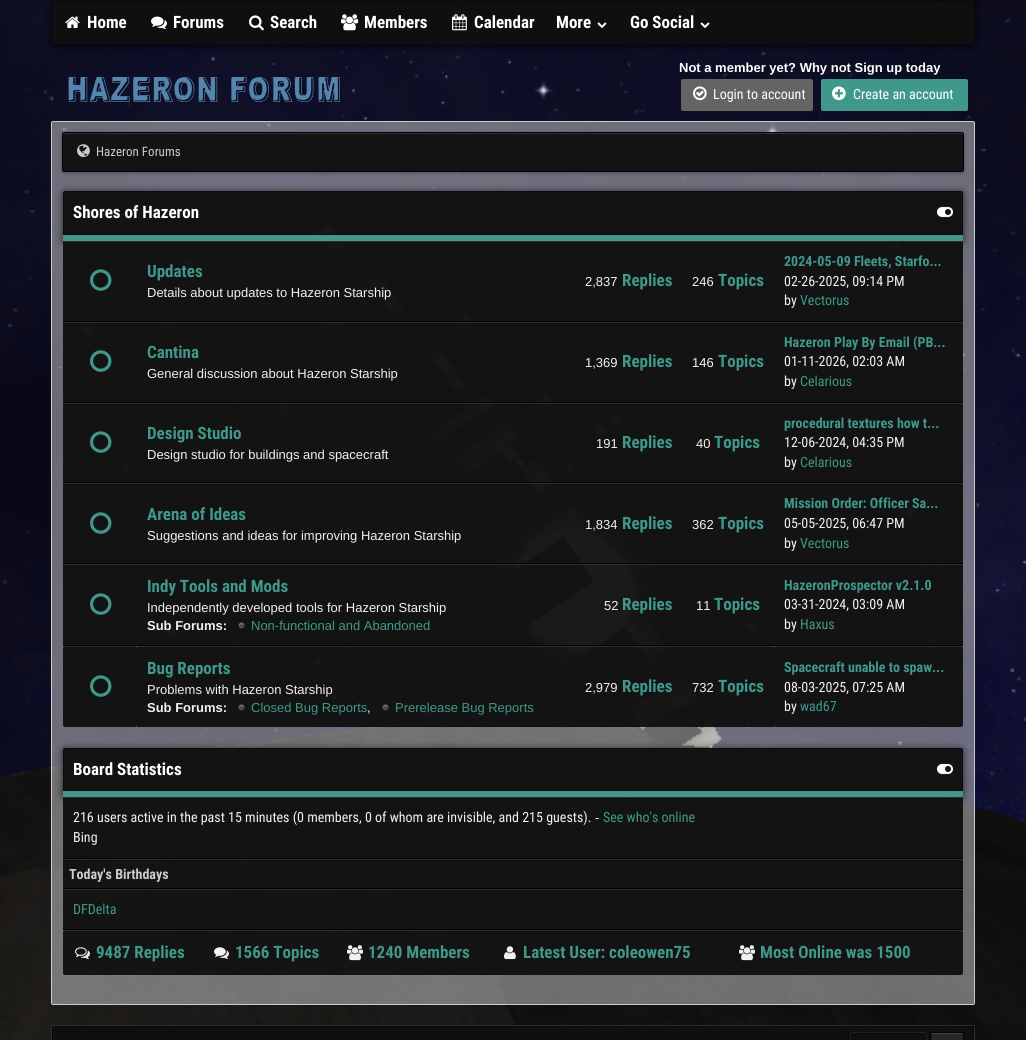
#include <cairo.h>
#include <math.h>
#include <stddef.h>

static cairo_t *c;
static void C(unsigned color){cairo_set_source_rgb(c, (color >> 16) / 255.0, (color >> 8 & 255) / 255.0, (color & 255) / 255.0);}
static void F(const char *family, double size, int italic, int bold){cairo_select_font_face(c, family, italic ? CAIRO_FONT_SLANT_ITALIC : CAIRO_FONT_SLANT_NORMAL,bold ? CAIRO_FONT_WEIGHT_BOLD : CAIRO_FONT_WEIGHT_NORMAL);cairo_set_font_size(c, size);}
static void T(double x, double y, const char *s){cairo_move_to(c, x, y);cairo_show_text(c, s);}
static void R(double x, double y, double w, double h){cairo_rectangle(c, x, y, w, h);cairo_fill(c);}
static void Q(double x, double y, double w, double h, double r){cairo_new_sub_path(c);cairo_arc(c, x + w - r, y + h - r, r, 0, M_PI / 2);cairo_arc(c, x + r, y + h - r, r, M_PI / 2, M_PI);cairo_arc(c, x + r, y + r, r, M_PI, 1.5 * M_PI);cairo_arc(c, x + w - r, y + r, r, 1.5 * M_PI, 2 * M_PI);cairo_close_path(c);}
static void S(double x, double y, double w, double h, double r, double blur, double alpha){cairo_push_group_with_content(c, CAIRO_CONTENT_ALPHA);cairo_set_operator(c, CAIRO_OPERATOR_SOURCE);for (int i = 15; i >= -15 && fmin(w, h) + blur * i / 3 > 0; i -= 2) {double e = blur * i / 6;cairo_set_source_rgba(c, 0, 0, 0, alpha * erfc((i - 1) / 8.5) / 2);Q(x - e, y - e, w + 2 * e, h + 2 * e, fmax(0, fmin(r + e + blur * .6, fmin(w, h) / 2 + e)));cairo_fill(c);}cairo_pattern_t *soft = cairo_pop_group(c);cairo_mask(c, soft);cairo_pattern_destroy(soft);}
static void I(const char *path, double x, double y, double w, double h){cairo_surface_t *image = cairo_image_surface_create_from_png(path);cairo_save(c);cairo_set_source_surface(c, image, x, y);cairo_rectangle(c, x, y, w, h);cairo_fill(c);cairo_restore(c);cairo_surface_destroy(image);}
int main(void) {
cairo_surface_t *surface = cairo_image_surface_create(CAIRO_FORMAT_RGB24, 1026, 1040);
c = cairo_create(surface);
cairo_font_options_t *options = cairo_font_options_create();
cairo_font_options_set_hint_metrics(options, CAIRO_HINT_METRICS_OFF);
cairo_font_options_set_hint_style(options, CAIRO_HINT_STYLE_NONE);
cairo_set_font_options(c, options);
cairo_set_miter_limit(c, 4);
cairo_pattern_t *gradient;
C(0xffffff);
cairo_paint(c);
I("1.png",0,0,1026,1040);
cairo_save(c);
cairo_set_fill_rule(c,CAIRO_FILL_RULE_EVEN_ODD);
cairo_new_path(c);
cairo_move_to(c,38,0);
cairo_line_to(c,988,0);
cairo_line_to(c,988,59);
cairo_line_to(c,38,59);
cairo_close_path(c);
cairo_move_to(c,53,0);
cairo_line_to(c,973,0);
cairo_curve_to(c,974,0,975,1,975,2);
cairo_line_to(c,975,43);
cairo_curve_to(c,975,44,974,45,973,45);
cairo_line_to(c,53,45);
cairo_curve_to(c,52,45,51,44,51,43);
cairo_line_to(c,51,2);
cairo_curve_to(c,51,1,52,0,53,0);
cairo_close_path(c);
cairo_clip(c);
C(0x000000);
S(51,1,924,45,2,4,.7);
cairo_restore(c);
cairo_set_source_rgba(c,0.059,0.059,0.059,0.95);
Q(51,0,924,45,2);
cairo_fill(c);
Q(51.5,.5,923,44,1.5);
cairo_set_source_rgba(c,0,0,0,0.4);
cairo_set_line_width(c,1);
cairo_stroke(c);
I("2.png",65,16,15,12);
F("Roboto Condensed",17,0,1);
C(0xffffff);
T(87,28,"Home");
I("3.png",151,16,16,14);
T(173,28,"Forums");
I("4.png",249,15,15,16);
T(270,28,"Search");
I("5.png",341,14,18,17);
T(364,28,"Members");
I("6.png",452,14,15,17);
T(474,28,"Calendar");
T(556,28,"More");
I("7.png",597,22,10,7);
T(630,28,"Go Social");
I("7.png",700,22,10,7);
I("8.png",68,77,272,25);
F("Liberation Sans",13,0,1);
T(679,72,"Not a member yet? Why not Sign up today");
C(0x646464);
Q(681,79,132,32,2);
cairo_fill(c);
I("9.png",693,86,14,15);
F("Roboto Condensed",14,0,0);
C(0xffffff);
T(713,99,"Login to account");
C(0x000000);
S(821,80,147,32,2,1.5,.15);
C(0x3f9889);
Q(821,79,147,32,2);
cairo_fill(c);
I("10.png",832,86,14,15);
C(0xffffff);
T(853,99,"Create an account");
cairo_set_source_rgba(c,1,1,1,0.4);
Q(51.5,121.5,923,883,1.5);
cairo_fill_preserve(c);
C(0xcccccc);
cairo_stroke(c);
cairo_save(c);
cairo_set_fill_rule(c,CAIRO_FILL_RULE_EVEN_ODD);
cairo_new_path(c);
cairo_move_to(c,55,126);
cairo_line_to(c,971,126);
cairo_line_to(c,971,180);
cairo_line_to(c,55,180);
cairo_close_path(c);
cairo_move_to(c,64,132);
cairo_line_to(c,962,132);
cairo_curve_to(c,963,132,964,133,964,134);
cairo_line_to(c,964,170);
cairo_curve_to(c,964,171,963,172,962,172);
cairo_line_to(c,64,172);
cairo_curve_to(c,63,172,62,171,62,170);
cairo_line_to(c,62,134);
cairo_curve_to(c,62,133,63,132,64,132);
cairo_close_path(c);
cairo_clip(c);
C(0x000000);
S(62,133,902,40,2,2,.3);
cairo_restore(c);
cairo_set_source_rgba(c,0.059,0.059,0.059,0.95);
Q(63,133,900,38,1);
cairo_fill(c);
cairo_set_source_rgba(c,1,1,1,0.13);
cairo_new_path(c);
cairo_move_to(c,64,134);
cairo_line_to(c,963,134);
cairo_line_to(c,962,133);
cairo_line_to(c,64,133);
cairo_line_to(c,63,134);
cairo_line_to(c,63,135);
cairo_close_path(c);
cairo_fill(c);
Q(62.5,132.5,901,39,1.5);
C(0x000000);
cairo_stroke(c);
I("11.png",77,144,13,14);
F("Roboto Condensed",13,0,0);
C(0xcccccc);
T(96,156,"Hazeron Forums");
cairo_save(c);
cairo_set_fill_rule(c,CAIRO_FILL_RULE_EVEN_ODD);
cairo_new_path(c);
cairo_move_to(c,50,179);
cairo_line_to(c,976,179);
cairo_line_to(c,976,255);
cairo_line_to(c,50,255);
cairo_close_path(c);
cairo_move_to(c,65,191);
cairo_line_to(c,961,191);
cairo_curve_to(c,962,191,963,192,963,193);
cairo_line_to(c,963,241);
cairo_line_to(c,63,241);
cairo_line_to(c,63,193);
cairo_curve_to(c,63,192,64,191,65,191);
cairo_close_path(c);
cairo_clip(c);
C(0x000000);
S(63,192,900,50,2,4,.7);
cairo_restore(c);
cairo_set_source_rgba(c,0.059,0.059,0.059,0.95);
cairo_new_path(c);
cairo_move_to(c,65,191);
cairo_line_to(c,961,191);
cairo_curve_to(c,962,191,963,192,963,193);
cairo_line_to(c,963,235);
cairo_line_to(c,63,235);
cairo_line_to(c,63,193);
cairo_curve_to(c,63,192,64,191,65,191);
cairo_close_path(c);
cairo_fill(c);
cairo_new_path(c);
cairo_move_to(c,65,191.5);
cairo_line_to(c,961,191.5);
cairo_curve_to(c,962,191.5,962.5,192,962.5,193);
cairo_line_to(c,962.5,234.5);
cairo_line_to(c,63.5,234.5);
cairo_line_to(c,63.5,193);
cairo_curve_to(c,63.5,192,64,191.5,65,191.5);
cairo_close_path(c);
cairo_set_source_rgba(c,0,0,0,0.4);
cairo_stroke(c);
C(0x3f9889);
R(63,235,900,6);
F("Roboto Condensed",17,0,1);
C(0xffffff);
T(73,218,"Shores of Hazeron");
I("12.png",937,206,16,12);
cairo_set_source_rgba(c,0.059,0.059,0.059,0.95);
R(63,242,74,79);
C(0x2e2e2e);
R(63,241,900,1);
C(0x000000);
R(63,321,900,1);
I("13.png",90,269,22,22);
cairo_set_source_rgba(c,0.059,0.059,0.059,0.95);
R(137,242,438,79);
C(0x3f9889);
T(147,277,"Updates");
F("Liberation Sans",13,0,0);
C(0xf1f1f1);
T(147,297,"Details about updates to Hazeron Starship");
cairo_set_source_rgba(c,0.059,0.059,0.059,0.95);
R(575,242,107,79);
C(0xf1f1f1);
T(585,286,"2,837");
F("Roboto Condensed",17,0,1);
C(0x3f9889);
T(622,286,"Replies");
cairo_set_source_rgba(c,0.059,0.059,0.059,0.95);
R(682,242,92,79);
F("Liberation Sans",13,0,0);
C(0xf1f1f1);
T(692,286,"246");
F("Roboto Condensed",17,0,1);
C(0x3f9889);
T(718,286,"Topics");
cairo_set_source_rgba(c,0.059,0.059,0.059,0.95);
R(774,242,189,79);
F("Roboto Condensed",14,0,1);
C(0x3f9889);
T(784,266,"2024-05-09 Fleets, Starfo...");
F("Roboto Condensed",14,0,0);
C(0xf1f1f1);
T(784,286,"02-26-2025, 09:14 PM");
T(784,305,"by");
C(0x3f9889);
T(800,305,"Vectorus");
cairo_set_source_rgba(c,0.059,0.059,0.059,0.95);
R(63,323,74,79);
C(0x2e2e2e);
R(63,322,900,1);
C(0x000000);
R(63,402,900,1);
I("14.png",90,350,22,22);
cairo_set_source_rgba(c,0.059,0.059,0.059,0.95);
R(137,323,438,79);
F("Roboto Condensed",17,0,1);
C(0x3f9889);
T(147,358,"Cantina");
F("Liberation Sans",13,0,0);
C(0xf1f1f1);
T(147,378,"General discussion about Hazeron Starship");
cairo_set_source_rgba(c,0.059,0.059,0.059,0.95);
R(575,323,107,79);
C(0xf1f1f1);
T(585,367,"1,369");
F("Roboto Condensed",17,0,1);
C(0x3f9889);
T(622,367,"Replies");
cairo_set_source_rgba(c,0.059,0.059,0.059,0.95);
R(682,323,92,79);
F("Liberation Sans",13,0,0);
C(0xf1f1f1);
T(692,367,"146");
F("Roboto Condensed",17,0,1);
C(0x3f9889);
T(718,367,"Topics");
cairo_set_source_rgba(c,0.059,0.059,0.059,0.95);
R(774,323,189,79);
F("Roboto Condensed",14,0,1);
C(0x3f9889);
T(784,347,"Hazeron Play By Email (PB...");
F("Roboto Condensed",14,0,0);
C(0xf1f1f1);
T(784,366,"01-11-2026, 02:03 AM");
T(784,386,"by");
C(0x3f9889);
T(800,386,"Celarious");
cairo_set_source_rgba(c,0.059,0.059,0.059,0.95);
R(63,404,74,78);
C(0x2e2e2e);
R(63,403,900,1);
C(0x000000);
R(63,482,900,1);
I("15.png",90,431,22,22);
cairo_set_source_rgba(c,0.059,0.059,0.059,0.95);
R(137,404,438,78);
F("Roboto Condensed",17,0,1);
C(0x3f9889);
T(147,439,"Design Studio");
F("Liberation Sans",13,0,0);
C(0xf1f1f1);
T(147,459,"Design studio for buildings and spacecraft");
cairo_set_source_rgba(c,0.059,0.059,0.059,0.95);
R(575,404,107,78);
C(0xf1f1f1);
T(596,448,"191");
F("Roboto Condensed",17,0,1);
C(0x3f9889);
T(622,448,"Replies");
cairo_set_source_rgba(c,0.059,0.059,0.059,0.95);
R(682,404,92,78);
F("Liberation Sans",13,0,0);
C(0xf1f1f1);
T(696,448,"40");
F("Roboto Condensed",17,0,1);
C(0x3f9889);
T(714,448,"Topics");
cairo_set_source_rgba(c,0.059,0.059,0.059,0.95);
R(774,404,189,78);
F("Roboto Condensed",14,0,1);
C(0x3f9889);
T(784,428,"procedural textures how t...");
F("Roboto Condensed",14,0,0);
C(0xf1f1f1);
T(784,447,"12-06-2024, 04:35 PM");
T(784,467,"by");
C(0x3f9889);
T(800,467,"Celarious");
cairo_set_source_rgba(c,0.059,0.059,0.059,0.95);
R(63,484,74,79);
C(0x2e2e2e);
R(63,483,900,1);
C(0x000000);
R(63,563,900,1);
I("16.png",90,512,22,22);
cairo_set_source_rgba(c,0.059,0.059,0.059,0.95);
R(137,484,438,79);
F("Roboto Condensed",17,0,1);
C(0x3f9889);
T(147,520,"Arena of Ideas");
F("Liberation Sans",13,0,0);
C(0xf1f1f1);
T(147,540,"Suggestions and ideas for improving Hazeron Starship");
cairo_set_source_rgba(c,0.059,0.059,0.059,0.95);
R(575,484,107,79);
C(0xf1f1f1);
T(585,529,"1,834");
F("Roboto Condensed",17,0,1);
C(0x3f9889);
T(622,529,"Replies");
cairo_set_source_rgba(c,0.059,0.059,0.059,0.95);
R(682,484,92,79);
F("Liberation Sans",13,0,0);
C(0xf1f1f1);
T(692,529,"362");
F("Roboto Condensed",17,0,1);
C(0x3f9889);
T(718,529,"Topics");
cairo_set_source_rgba(c,0.059,0.059,0.059,0.95);
R(774,484,189,79);
F("Roboto Condensed",14,0,1);
C(0x3f9889);
T(784,508,"Mission Order: Officer Sa...");
F("Roboto Condensed",14,0,0);
C(0xf1f1f1);
T(784,528,"05-05-2025, 06:47 PM");
T(784,548,"by");
C(0x3f9889);
T(800,548,"Vectorus");
cairo_set_source_rgba(c,0.059,0.059,0.059,0.95);
R(63,565,74,80);
C(0x2e2e2e);
R(63,564,900,1);
C(0x000000);
R(63,645,900,1);
I("17.png",90,593,22,22);
cairo_set_source_rgba(c,0.059,0.059,0.059,0.95);
R(137,565,438,80);
F("Roboto Condensed",17,0,1);
C(0x3f9889);
T(147,592,"Indy Tools and Mods");
F("Liberation Sans",13,0,0);
C(0xf1f1f1);
T(147,612,"Independently developed tools for Hazeron Starship");
F("Liberation Sans",13,0,1);
T(147,630,"Sub Forums:");
I("18.png",238,622,7,7);
F("Liberation Sans",13,0,0);
C(0x3f9889);
T(251,630,"Non-functional and Abandoned");
cairo_set_source_rgba(c,0.059,0.059,0.059,0.95);
R(575,565,107,80);
C(0xf1f1f1);
T(604,610,"52");
F("Roboto Condensed",17,0,1);
C(0x3f9889);
T(622,610,"Replies");
cairo_set_source_rgba(c,0.059,0.059,0.059,0.95);
R(682,565,92,80);
F("Liberation Sans",13,0,0);
C(0xf1f1f1);
T(696,610,"11");
F("Roboto Condensed",17,0,1);
C(0x3f9889);
T(714,610,"Topics");
cairo_set_source_rgba(c,0.059,0.059,0.059,0.95);
R(774,565,189,80);
F("Roboto Condensed",14,0,1);
C(0x3f9889);
T(784,590,"HazeronProspector v2.1.0");
F("Roboto Condensed",14,0,0);
C(0xf1f1f1);
T(784,609,"03-31-2024, 03:09 AM");
T(784,629,"by");
C(0x3f9889);
T(800,629,"Haxus");
cairo_set_source_rgba(c,0.059,0.059,0.059,0.95);
Q(63,646,74,81,2);
cairo_fill(c);
C(0x2e2e2e);
R(64,646,72,1);
I("19.png",90,675,22,22);
cairo_set_source_rgba(c,0.059,0.059,0.059,0.95);
R(137,647,438,80);
C(0x2e2e2e);
R(137,646,637,1);
F("Roboto Condensed",17,0,1);
C(0x3f9889);
T(147,674,"Bug Reports");
F("Liberation Sans",13,0,0);
C(0xf1f1f1);
T(147,694,"Problems with Hazeron Starship");
F("Liberation Sans",13,0,1);
T(147,712,"Sub Forums:");
I("20.png",238,704,7,7);
F("Liberation Sans",13,0,0);
C(0x3f9889);
T(251,712,"Closed Bug Reports");
I("21.png",382,704,7,7);
T(395,712,"Prerelease Bug Reports");
C(0xf1f1f1);
T(367,712,",");
cairo_set_source_rgba(c,0.059,0.059,0.059,0.95);
R(575,647,107,80);
C(0xf1f1f1);
T(585,692,"2,979");
F("Roboto Condensed",17,0,1);
C(0x3f9889);
T(622,692,"Replies");
cairo_set_source_rgba(c,0.059,0.059,0.059,0.95);
R(682,647,92,80);
F("Liberation Sans",13,0,0);
C(0xf1f1f1);
T(692,692,"732");
F("Roboto Condensed",17,0,1);
C(0x3f9889);
T(718,692,"Topics");
cairo_set_source_rgba(c,0.059,0.059,0.059,0.95);
Q(774,646,189,81,2);
cairo_fill(c);
C(0x2e2e2e);
R(775,646,187,1);
F("Roboto Condensed",14,0,1);
C(0x3f9889);
T(784,672,"Spacecraft unable to spaw...");
F("Roboto Condensed",14,0,0);
C(0xf1f1f1);
T(784,692,"08-03-2025, 07:25 AM");
T(784,711,"by");
C(0x3f9889);
T(800,711,"wad67");
cairo_save(c);
cairo_set_fill_rule(c,CAIRO_FILL_RULE_EVEN_ODD);
cairo_new_path(c);
cairo_move_to(c,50,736);
cairo_line_to(c,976,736);
cairo_line_to(c,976,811);
cairo_line_to(c,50,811);
cairo_close_path(c);
cairo_move_to(c,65,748);
cairo_line_to(c,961,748);
cairo_curve_to(c,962,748,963,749,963,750);
cairo_line_to(c,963,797);
cairo_line_to(c,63,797);
cairo_line_to(c,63,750);
cairo_curve_to(c,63,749,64,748,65,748);
cairo_close_path(c);
cairo_clip(c);
C(0x000000);
S(63,749,900,49,2,4,.7);
cairo_restore(c);
cairo_set_source_rgba(c,0.059,0.059,0.059,0.95);
cairo_new_path(c);
cairo_move_to(c,65,748);
cairo_line_to(c,961,748);
cairo_curve_to(c,962,748,963,749,963,750);
cairo_line_to(c,963,791);
cairo_line_to(c,63,791);
cairo_line_to(c,63,750);
cairo_curve_to(c,63,749,64,748,65,748);
cairo_close_path(c);
cairo_fill(c);
cairo_new_path(c);
cairo_move_to(c,65,748.5);
cairo_line_to(c,961,748.5);
cairo_curve_to(c,962,748.5,962.5,749,962.5,750);
cairo_line_to(c,962.5,790.5);
cairo_line_to(c,63.5,790.5);
cairo_line_to(c,63.5,750);
cairo_curve_to(c,63.5,749,64,748.5,65,748.5);
cairo_close_path(c);
cairo_set_source_rgba(c,0,0,0,0.4);
cairo_stroke(c);
C(0x3f9889);
R(63,791,900,6);
F("Roboto Condensed",17,0,1);
C(0xffffff);
T(73,775,"Board Statistics");
I("22.png",937,763,16,12);
cairo_set_source_rgba(c,0.059,0.059,0.059,0.95);
R(63,798,900,60);
C(0x2e2e2e);
R(63,797,900,1);
C(0x000000);
R(63,858,900,1);
F("Roboto Condensed",14,0,0);
C(0xf1f1f1);
T(73,822,"216 users active in the past 15 minutes (0 members, 0 of whom are invisible, and 215 guests).");
F("Liberation Sans",13,0,0);
T(595,822,"-");
F("Roboto Condensed",14,0,0);
C(0x3f9889);
T(603,822,"See who's online");
C(0xf1f1f1);
T(73,842,"Bing");
cairo_set_source_rgba(c,0.059,0.059,0.059,0.95);
R(63,860,900,28);
C(0x2e2e2e);
R(63,859,900,1);
C(0x000000);
R(63,888,900,1);
F("Roboto Condensed",14,0,1);
C(0xcccccc);
T(69,879,"Today's Birthdays");
cairo_set_source_rgba(c,0.059,0.059,0.059,0.95);
R(63,890,900,39);
C(0x2e2e2e);
R(63,889,900,1);
C(0x000000);
R(63,929,900,1);
F("Roboto Condensed",14,0,0);
C(0x3f9889);
T(73,914,"DFDelta");
cairo_set_source_rgba(c,0.059,0.059,0.059,0.95);
Q(63,930,900,45,2);
cairo_fill(c);
C(0x2e2e2e);
R(64,930,898,1);
I("23.png",75,947,15,12);
F("Roboto Condensed",17,0,1);
C(0x3f9889);
T(96,958,"9487 Replies");
I("24.png",214,947,15,12);
T(235,958,"1566 Topics");
I("25.png",347,945,17,16);
T(368,958,"1240 Members");
I("26.png",504,946,12,14);
T(523,958,"Latest User: coleowen75");
I("27.png",739,945,17,16);
T(760,958,"Most Online was 1500");
cairo_set_source_rgba(c,0.059,0.059,0.059,0.95);
Q(52,1026,922,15,1);
cairo_fill(c);
Q(52.5,1026.5,921,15,.5);
cairo_set_source_rgba(c,0,0,0,0.4);
cairo_stroke(c);
Q(51.5,1025.5,923,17,1.5);
C(0x2e2e2e);
cairo_stroke(c);
Q(851.5,1033.5,74,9,1.5);
C(0x090909);
cairo_stroke(c);
Q(850.5,1032.5,76,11,2.5);
C(0x222222);
cairo_stroke(c);
gradient = cairo_pattern_create_linear(947,1033,947,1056);
cairo_pattern_add_color_stop_rgba(gradient,0,0.153,0.153,0.153,1);
cairo_pattern_add_color_stop_rgba(gradient,1,0.129,0.129,0.129,1);
cairo_set_source(c,gradient);
cairo_pattern_destroy(gradient);
Q(931,1033,32,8,1);
cairo_fill(c);
cairo_set_source_rgba(c,1,1,1,0.13);
cairo_new_path(c);
cairo_move_to(c,932,1034);
cairo_line_to(c,962,1034);
cairo_curve_to(c,963,1034,963,1034,963,1035);
cairo_curve_to(c,963,1031.5,960.5,1033,957,1033);
cairo_line_to(c,937,1033);
cairo_curve_to(c,933.5,1033,931,1031.5,931,1035);
cairo_curve_to(c,931,1034,931,1034,932,1034);
cairo_close_path(c);
cairo_fill(c);
Q(930.5,1032.5,33,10,1.5);
C(0x000000);
cairo_stroke(c);
cairo_surface_write_to_png(surface, "o.png");
cairo_font_options_destroy(options);
cairo_destroy(c);
cairo_surface_destroy(surface);
return 0;
}
